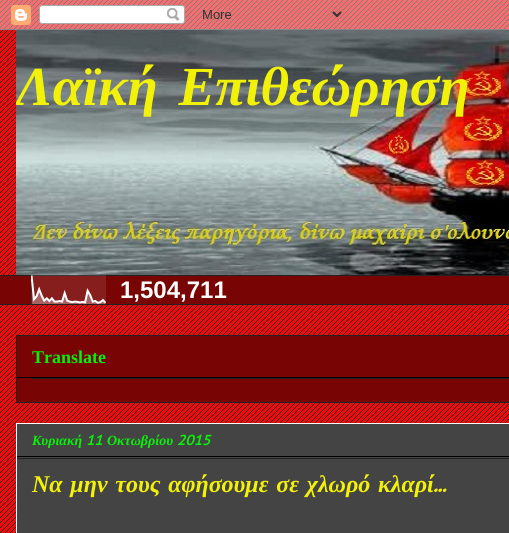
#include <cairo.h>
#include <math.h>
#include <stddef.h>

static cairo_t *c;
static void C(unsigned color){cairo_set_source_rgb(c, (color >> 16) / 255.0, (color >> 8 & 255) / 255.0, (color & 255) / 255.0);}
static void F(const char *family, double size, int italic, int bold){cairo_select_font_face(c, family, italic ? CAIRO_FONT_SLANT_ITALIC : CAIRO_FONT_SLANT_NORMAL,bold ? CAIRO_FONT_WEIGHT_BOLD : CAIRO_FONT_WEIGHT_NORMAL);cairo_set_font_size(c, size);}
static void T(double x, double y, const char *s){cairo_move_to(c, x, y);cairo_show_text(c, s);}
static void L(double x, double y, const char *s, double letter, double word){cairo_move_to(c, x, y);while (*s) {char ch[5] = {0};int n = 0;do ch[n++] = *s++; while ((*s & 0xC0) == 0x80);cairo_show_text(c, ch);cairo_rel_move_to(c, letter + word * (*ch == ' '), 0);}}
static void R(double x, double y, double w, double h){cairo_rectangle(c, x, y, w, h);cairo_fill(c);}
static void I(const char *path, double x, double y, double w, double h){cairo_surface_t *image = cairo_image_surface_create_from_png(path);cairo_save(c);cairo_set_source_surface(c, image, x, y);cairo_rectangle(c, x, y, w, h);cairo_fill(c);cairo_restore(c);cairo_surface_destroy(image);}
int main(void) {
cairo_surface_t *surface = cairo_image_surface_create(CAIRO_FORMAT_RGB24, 509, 533);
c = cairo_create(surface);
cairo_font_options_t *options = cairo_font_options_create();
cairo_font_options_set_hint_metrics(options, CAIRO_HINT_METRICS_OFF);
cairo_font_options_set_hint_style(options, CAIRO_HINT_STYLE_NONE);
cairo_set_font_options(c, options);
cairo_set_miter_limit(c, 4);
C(0xf20a0a);
cairo_paint(c);
I("1.png",0,0,509,533);
I("2.png",0,0,509,30);
I("3.png",16,30,493,245);
cairo_save(c);
cairo_rectangle(c,16,30,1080,245);
cairo_clip(c);
F("Liberation Serif",55,1,1);
C(0xf2f209);
L(16,105,"Λαϊκή Επιθεώρηση",0,7);
cairo_restore(c);
C(0x790404);
R(0,276,509,28);
C(0x222222);
R(0,275,509,1);
I("4.png",31,275,75,29);
F("Liberation Sans",24,0,1);
C(0xffffff);
T(120,298,"1,504,711");
C(0x222222);
R(0,304,509,1);
C(0x790404);
cairo_rectangle(c,16.5,335.5,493,67);
cairo_fill_preserve(c);
C(0x222222);
cairo_set_line_width(c,1);
cairo_stroke(c);
C(0x000000);
R(17,377,492,1);
F("Liberation Serif",18,0,1);
C(0x08f208);
T(32,363,"Translate");
C(0x222222);
R(32,378,477,1);
C(0x444444);
cairo_rectangle(c,16.5,423.5,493,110);
cairo_fill_preserve(c);
C(0xffffff);
cairo_stroke(c);
C(0x000000);
R(17,456,492,1);
F("Liberation Serif",14,1,1);
C(0x08f208);
T(32,445,"Κυριακή");
F("PT Sans Caption",14,1,1);
T(86,445,"11");
F("Liberation Serif",14,1,1);
T(107,445,"Οκτωβρίου");
F("PT Sans Caption",14,1,1);
T(177,445,"2015");
C(0x222222);
R(17,458,492,1);
F("Liberation Serif",24,1,1);
C(0xf2f209);
L(32,492,"Να μην τους αφήσουμε σε χλωρό κλαρί",0,1.75);
F("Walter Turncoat",24,1,1);
T(433,492,"...");
cairo_surface_write_to_png(surface, "o.png");
cairo_font_options_destroy(options);
cairo_destroy(c);
cairo_surface_destroy(surface);
return 0;
}
